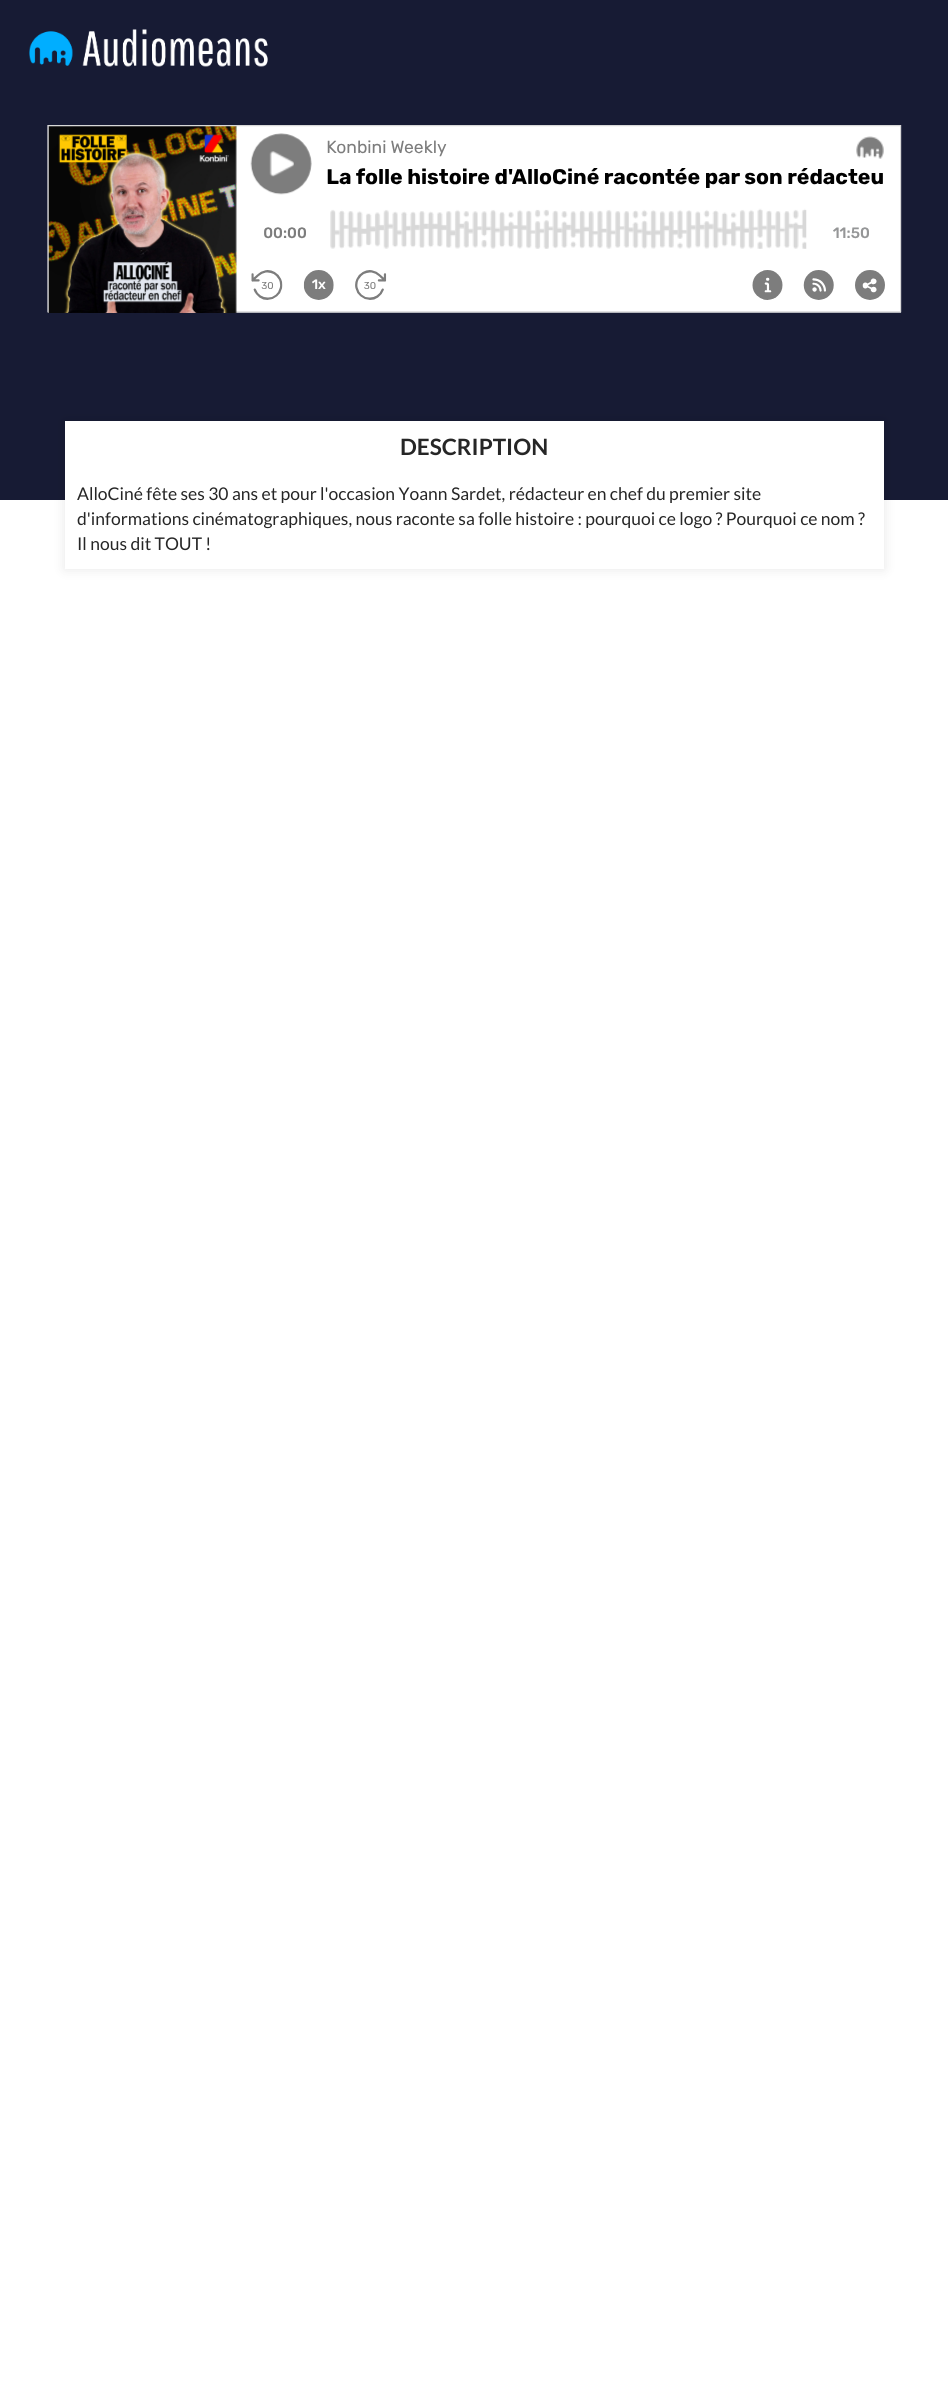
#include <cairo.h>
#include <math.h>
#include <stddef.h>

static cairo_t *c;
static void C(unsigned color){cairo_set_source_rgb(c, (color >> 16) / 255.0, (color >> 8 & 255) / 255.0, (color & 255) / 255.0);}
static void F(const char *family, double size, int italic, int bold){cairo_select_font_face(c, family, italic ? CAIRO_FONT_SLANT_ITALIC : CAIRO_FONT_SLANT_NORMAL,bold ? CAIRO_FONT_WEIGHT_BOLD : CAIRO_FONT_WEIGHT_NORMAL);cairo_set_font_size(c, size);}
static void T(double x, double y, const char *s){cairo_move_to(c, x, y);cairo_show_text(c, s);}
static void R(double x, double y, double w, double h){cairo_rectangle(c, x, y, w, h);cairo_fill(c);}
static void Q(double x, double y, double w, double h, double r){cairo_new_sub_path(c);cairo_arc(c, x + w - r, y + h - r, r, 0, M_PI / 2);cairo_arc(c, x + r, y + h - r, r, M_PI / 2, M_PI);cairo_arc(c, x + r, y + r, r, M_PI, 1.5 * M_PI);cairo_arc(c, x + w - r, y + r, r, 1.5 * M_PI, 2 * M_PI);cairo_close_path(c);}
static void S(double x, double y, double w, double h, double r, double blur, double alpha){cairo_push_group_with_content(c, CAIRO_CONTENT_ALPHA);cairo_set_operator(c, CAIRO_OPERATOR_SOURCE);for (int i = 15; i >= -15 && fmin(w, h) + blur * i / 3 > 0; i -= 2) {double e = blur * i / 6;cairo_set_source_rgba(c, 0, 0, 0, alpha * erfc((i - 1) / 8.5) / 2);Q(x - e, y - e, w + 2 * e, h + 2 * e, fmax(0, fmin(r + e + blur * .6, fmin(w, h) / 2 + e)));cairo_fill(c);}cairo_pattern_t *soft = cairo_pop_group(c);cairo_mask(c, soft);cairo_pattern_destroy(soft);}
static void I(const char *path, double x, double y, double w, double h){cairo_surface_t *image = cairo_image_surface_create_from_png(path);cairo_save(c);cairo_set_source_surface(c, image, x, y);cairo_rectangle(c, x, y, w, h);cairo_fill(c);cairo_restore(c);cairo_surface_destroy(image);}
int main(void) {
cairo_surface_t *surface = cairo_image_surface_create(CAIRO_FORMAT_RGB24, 948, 2408);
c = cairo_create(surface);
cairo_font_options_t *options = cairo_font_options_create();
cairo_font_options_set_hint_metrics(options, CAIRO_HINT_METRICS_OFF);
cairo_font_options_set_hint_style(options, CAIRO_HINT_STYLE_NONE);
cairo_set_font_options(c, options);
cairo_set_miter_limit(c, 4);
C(0xffffff);
cairo_paint(c);
C(0x171b34);
R(0,0,948,500);
I("1.png",29,29,239,38);
I("2.png",47,125,855,188);
C(0x000000);
S(65,421,819,148,0,6,.1);
C(0xffffff);
R(65,421,819,148);
F("Lato",22.5,0,1);
C(0x262626);
T(400,455,"DESCRIPTION");
F("Lato",17.5,0,0);
T(77,500,"AlloCiné fête ses 30 ans et pour l'occasion Yoann Sardet, rédacteur en chef du premier site");
T(77,525,"d'informations cinématographiques, nous raconte sa folle histoire : pourquoi ce logo ? Pourquoi ce nom ?");
T(77,550,"Il nous dit TOUT !");
cairo_surface_write_to_png(surface, "o.png");
cairo_font_options_destroy(options);
cairo_destroy(c);
cairo_surface_destroy(surface);
return 0;
}
